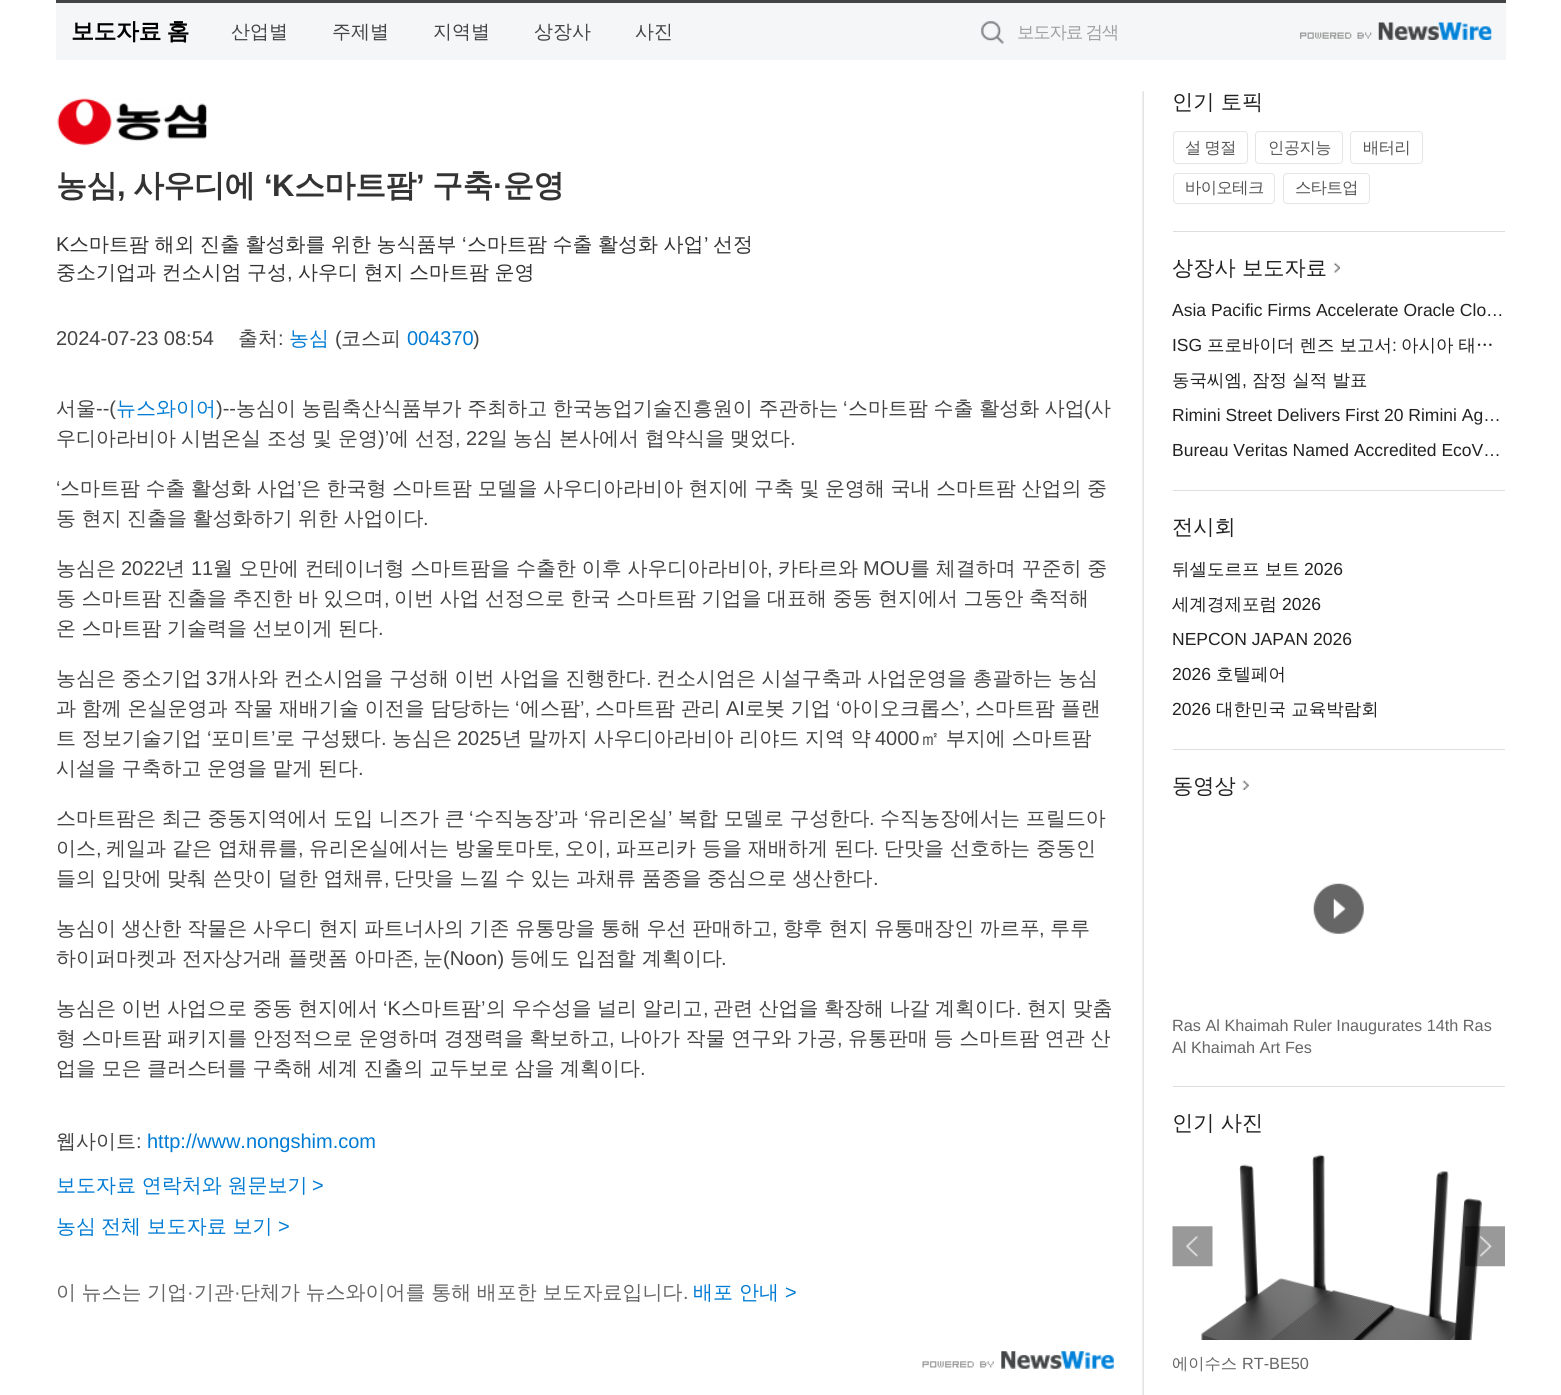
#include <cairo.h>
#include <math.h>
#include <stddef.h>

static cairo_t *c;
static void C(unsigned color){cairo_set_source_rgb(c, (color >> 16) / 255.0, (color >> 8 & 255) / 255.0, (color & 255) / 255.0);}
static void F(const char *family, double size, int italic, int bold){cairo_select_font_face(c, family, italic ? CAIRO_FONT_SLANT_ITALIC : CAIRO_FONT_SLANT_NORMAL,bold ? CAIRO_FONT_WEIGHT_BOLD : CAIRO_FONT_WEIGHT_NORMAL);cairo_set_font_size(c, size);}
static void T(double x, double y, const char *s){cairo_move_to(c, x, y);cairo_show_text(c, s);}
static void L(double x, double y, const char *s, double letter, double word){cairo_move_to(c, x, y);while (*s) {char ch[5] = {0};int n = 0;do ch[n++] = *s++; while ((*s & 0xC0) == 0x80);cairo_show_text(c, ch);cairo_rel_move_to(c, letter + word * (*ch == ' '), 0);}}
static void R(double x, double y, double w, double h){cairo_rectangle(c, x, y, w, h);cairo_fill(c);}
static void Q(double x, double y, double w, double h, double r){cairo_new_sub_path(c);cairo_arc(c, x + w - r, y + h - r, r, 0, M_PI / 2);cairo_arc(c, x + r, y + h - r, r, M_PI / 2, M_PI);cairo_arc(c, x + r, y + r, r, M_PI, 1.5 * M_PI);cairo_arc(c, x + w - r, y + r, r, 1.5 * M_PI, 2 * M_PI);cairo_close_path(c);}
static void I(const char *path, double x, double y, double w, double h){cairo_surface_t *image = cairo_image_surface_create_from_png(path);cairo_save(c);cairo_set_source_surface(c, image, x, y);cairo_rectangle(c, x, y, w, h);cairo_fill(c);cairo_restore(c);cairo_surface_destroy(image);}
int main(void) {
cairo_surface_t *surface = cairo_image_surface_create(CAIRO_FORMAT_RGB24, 1561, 1395);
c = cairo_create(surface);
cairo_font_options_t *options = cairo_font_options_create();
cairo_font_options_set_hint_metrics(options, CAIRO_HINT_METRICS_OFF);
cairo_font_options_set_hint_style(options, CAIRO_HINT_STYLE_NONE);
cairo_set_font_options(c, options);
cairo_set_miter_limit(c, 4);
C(0xffffff);
cairo_paint(c);
C(0xf5f6f7);
R(56,3,1450,57);
C(0x424445);
R(56,0,1450,3);
F("WenQuanYi Zen Hei",23,0,1);
C(0x000000);
L(71,39,"보도자료 홈",-.5,-1);
F("WenQuanYi Zen Hei Medium",19,0,0);
C(0x444444);
T(231,38,"산업별");
T(332,38,"주제별");
T(433,38,"지역별");
T(534,38,"상장사");
T(635,38,"사진");
I("1.png",981,21,23,23);
F("WenQuanYi Zen Hei Medium",17.5,0,0);
C(0x9fa0a0);
L(1017,38,"보도자료 검색",-1.25,-.4);
I("2.png",1300,22,192,18);
I("3.png",1142,91,2,1304);
I("4.png",57,98,150,48);
F("WenQuanYi Zen Hei",31,0,1);
C(0x333333);
L(56,196,"농심",-.5,0);
L(133,196,"사우디에",-.5,0);
F("Liberation Sans",31,0,1);
L(264,196,"‘K",-.5,0);
F("WenQuanYi Zen Hei",31,0,1);
L(294,196,"스마트팜",-.5,0);
F("Liberation Sans",31,0,1);
L(416,196,"’",-.5,0);
F("WenQuanYi Zen Hei",31,0,1);
L(432,196,"구축",-.5,0);
L(503,196,"운영",-.5,0);
F("Liberation Sans",31,0,1);
L(493,196,"·",-.5,0);
L(117,196,",",-.5,0);
F("Liberation Sans",20,0,0);
T(56,251,"K");
F("WenQuanYi Zen Hei Medium",20,0,0);
L(69,251,"스마트팜 해외 진출 활성화를 위한 농식품부",0,-.5);
F("Liberation Sans",20,0,0);
T(462,251,"‘");
F("WenQuanYi Zen Hei Medium",20,0,0);
L(467,251,"스마트팜 수출 활성화 사업",0,-.5);
F("Liberation Sans",20,0,0);
T(704,251,"’");
F("WenQuanYi Zen Hei Medium",20,0,0);
T(713,251,"선정");
L(56,279,"중소기업과 컨소시엄 구성",0,-.5);
F("Liberation Sans",20,0,0);
T(287,279,",");
F("WenQuanYi Zen Hei Medium",20,0,0);
L(298,279,"사우디 현지 스마트팜 운영",0,-.5);
F("Liberation Sans",20,0,0);
C(0x444444);
T(56,345,"2024-07-23 08:54");
F("WenQuanYi Zen Hei Medium",20,0,0);
T(238,345,"출처");
F("Liberation Sans",20,0,0);
T(278,345,":");
F("WenQuanYi Zen Hei Medium",20,0,0);
C(0x007bd4);
T(289,345,"농심");
F("Liberation Sans",20,0,0);
C(0x444444);
T(335,345,"(");
F("WenQuanYi Zen Hei Medium",20,0,0);
T(341,345,"코스피");
F("Liberation Sans",20,0,0);
C(0x007bd4);
T(407,345,"004370");
C(0x444444);
T(473,345,")");
F("WenQuanYi Zen Hei Medium",20,0,0);
T(56,415,"서울");
F("Liberation Sans",20,0,0);
T(96,415,"--(");
F("WenQuanYi Zen Hei Medium",20,0,0);
C(0x007bd4);
T(116,415,"뉴스와이어");
F("Liberation Sans",20,0,0);
C(0x444444);
T(216,415,")--");
F("WenQuanYi Zen Hei Medium",20,0,0);
L(236,415,"농심이 농림축산식품부가 주최하고 한국농업기술진흥원이 주관하는",0,-.4);
F("Liberation Sans",20,0,0);
T(843,415,"‘");
F("WenQuanYi Zen Hei Medium",20,0,0);
L(848,415,"스마트팜 수출 활성화 사업",0,-.4);
F("Liberation Sans",20,0,0);
T(1084,415,"(");
F("WenQuanYi Zen Hei Medium",20,0,0);
T(1091,415,"사");
T(56,445,"우디아라비아");
T(181,445,"시범온실");
T(267,445,"조성");
T(312,445,"및");
T(338,445,"운영");
F("Liberation Sans",20,0,0);
T(378,445,")’");
F("WenQuanYi Zen Hei Medium",20,0,0);
T(389,445,"에");
T(415,445,"선정");
F("Liberation Sans",20,0,0);
T(455,445,", 22");
F("WenQuanYi Zen Hei Medium",20,0,0);
T(488,445,"일");
T(513,445,"농심");
T(559,445,"본사에서");
T(645,445,"협약식을");
T(730,445,"맺었다");
F("Liberation Sans",20,0,0);
T(790,445,".");
T(56,495,"‘");
F("WenQuanYi Zen Hei Medium",20,0,0);
L(60,495,"스마트팜 수출 활성화 사업",0,-.5);
F("Liberation Sans",20,0,0);
T(297,495,"’");
F("WenQuanYi Zen Hei Medium",20,0,0);
L(301,495,"은 한국형 스마트팜 모델을 사우디아라비아 현지에 구축 및 운영해 국내 스마트팜 산업의 중",0,-.5);
L(56,525,"동 현지 진출을 활성화하기 위한 사업이다",0,-.5);
F("Liberation Sans",20,0,0);
T(423,525,".");
F("WenQuanYi Zen Hei Medium",20,0,0);
T(56,575,"농심은");
F("Liberation Sans",20,0,0);
T(121,575,"2022");
F("WenQuanYi Zen Hei Medium",20,0,0);
T(165,575,"년");
F("Liberation Sans",20,0,0);
T(191,575,"11");
F("WenQuanYi Zen Hei Medium",20,0,0);
L(213,575,"월 오만에 컨테이너형 스마트팜을 수출한 이후 사우디아라비아",0,-.25);
F("Liberation Sans",20,0,0);
T(767,575,",");
F("WenQuanYi Zen Hei Medium",20,0,0);
T(778,575,"카타르와");
F("Liberation Sans",20,0,0);
T(863,575,"MOU");
F("WenQuanYi Zen Hei Medium",20,0,0);
L(910,575,"를 체결하며 꾸준히 중",0,-.25);
L(56,605,"동 스마트팜 진출을 추진한 바 있으며",0,-.5);
F("Liberation Sans",20,0,0);
T(384,605,",");
F("WenQuanYi Zen Hei Medium",20,0,0);
L(394,605,"이번 사업 선정으로 한국 스마트팜 기업을 대표해 중동 현지에서 그동안 축적해",0,-.5);
L(56,635,"온 스마트팜 기술력을 선보이게 된다",0,-.5);
F("Liberation Sans",20,0,0);
T(378,635,".");
F("WenQuanYi Zen Hei Medium",20,0,0);
L(56,685,"농심은 중소기업",0,-.5);
F("Liberation Sans",20,0,0);
T(206,685,"3");
F("WenQuanYi Zen Hei Medium",20,0,0);
L(218,685,"개사와 컨소시엄을 구성해 이번 사업을 진행한다",0,-.5);
F("Liberation Sans",20,0,0);
T(646,685,".");
F("WenQuanYi Zen Hei Medium",20,0,0);
L(656,685,"컨소시엄은 시설구축과 사업운영을 총괄하는 농심",0,-.5);
L(56,715,"과 함께 온실운영과 작물 재배기술 이전을 담당하는",0,-.25);
F("Liberation Sans",20,0,0);
T(515,715,"‘");
F("WenQuanYi Zen Hei Medium",20,0,0);
T(520,715,"에스팜");
F("Liberation Sans",20,0,0);
T(580,715,"’,");
F("WenQuanYi Zen Hei Medium",20,0,0);
L(595,715,"스마트팜 관리",0,-.25);
F("Liberation Sans",20,0,0);
T(726,715,"AI");
F("WenQuanYi Zen Hei Medium",20,0,0);
L(745,715,"로봇 기업",0,-.25);
F("Liberation Sans",20,0,0);
T(836,715,"‘");
F("WenQuanYi Zen Hei Medium",20,0,0);
T(840,715,"아이오크롭스");
F("Liberation Sans",20,0,0);
T(960,715,"’,");
F("WenQuanYi Zen Hei Medium",20,0,0);
L(975,715,"스마트팜 플랜",0,-.25);
L(56,745,"트 정보기술기업",0,-.25);
F("Liberation Sans",20,0,0);
T(207,745,"‘");
F("WenQuanYi Zen Hei Medium",20,0,0);
T(211,745,"포미트");
F("Liberation Sans",20,0,0);
T(271,745,"’");
F("WenQuanYi Zen Hei Medium",20,0,0);
L(275,745,"로 구성됐다",0,-.25);
F("Liberation Sans",20,0,0);
T(381,745,".");
F("WenQuanYi Zen Hei Medium",20,0,0);
T(392,745,"농심은");
F("Liberation Sans",20,0,0);
T(457,745,"2025");
F("WenQuanYi Zen Hei Medium",20,0,0);
L(502,745,"년 말까지 사우디아라비아 리야드 지역 약",0,-.25);
F("Liberation Sans",20,0,0);
T(875,745,"4000");
F("WenQuanYi Zen Hei Medium",20,0,0);
L(920,745,"㎡ 부지에 스마트팜",0,-.25);
L(56,775,"시설을 구축하고 운영을 맡게 된다",0,-.5);
F("Liberation Sans",20,0,0);
T(358,775,".");
F("WenQuanYi Zen Hei Medium",20,0,0);
L(56,825,"스마트팜은 최근 중동지역에서 도입 니즈가 큰",0,-.25);
F("Liberation Sans",20,0,0);
T(469,825,"‘");
F("WenQuanYi Zen Hei Medium",20,0,0);
T(474,825,"수직농장");
F("Liberation Sans",20,0,0);
T(554,825,"’");
F("WenQuanYi Zen Hei Medium",20,0,0);
T(558,825,"과");
F("Liberation Sans",20,0,0);
T(584,825,"‘");
F("WenQuanYi Zen Hei Medium",20,0,0);
T(588,825,"유리온실");
F("Liberation Sans",20,0,0);
T(668,825,"’");
F("WenQuanYi Zen Hei Medium",20,0,0);
L(678,825,"복합 모델로 구성한다",0,-.25);
L(880,825,"수직농장에서는 프릴드아",0,-.25);
F("Liberation Sans",20,0,0);
T(869,825,".");
F("WenQuanYi Zen Hei Medium",20,0,0);
T(56,855,"이스");
F("Liberation Sans",20,0,0);
T(96,855,",");
F("WenQuanYi Zen Hei Medium",20,0,0);
T(106,855,"케일과 같은 엽채류를");
F("Liberation Sans",20,0,0);
T(298,855,",");
F("WenQuanYi Zen Hei Medium",20,0,0);
T(309,855,"유리온실에서는 방울토마토");
F("Liberation Sans",20,0,0);
T(554,855,",");
F("WenQuanYi Zen Hei Medium",20,0,0);
T(565,855,"오이");
F("Liberation Sans",20,0,0);
T(605,855,",");
F("WenQuanYi Zen Hei Medium",20,0,0);
T(616,855,"파프리카 등을 재배하게 된다");
F("Liberation Sans",20,0,0);
T(873,855,".");
F("WenQuanYi Zen Hei Medium",20,0,0);
T(884,855,"단맛을 선호하는 중동인");
L(56,885,"들의 입맛에 맞춰 쓴맛이 덜한 엽채류",0,-.5);
F("Liberation Sans",20,0,0);
T(384,885,",");
F("WenQuanYi Zen Hei Medium",20,0,0);
L(394,885,"단맛을 느낄 수 있는 과채류 품종을 중심으로 생산한다",0,-.5);
F("Liberation Sans",20,0,0);
T(873,885,".");
F("WenQuanYi Zen Hei Medium",20,0,0);
L(56,935,"농심이 생산한 작물은 사우디 현지 파트너사의 기존 유통망을 통해 우선 판매하고",0,-.4);
F("Liberation Sans",20,0,0);
T(772,935,",");
F("WenQuanYi Zen Hei Medium",20,0,0);
L(783,935,"향후 현지 유통매장인 까르푸",0,-.4);
F("Liberation Sans",20,0,0);
T(1039,935,",");
F("WenQuanYi Zen Hei Medium",20,0,0);
T(1050,935,"루루");
T(56,965,"하이퍼마켓과 전자상거래 플랫폼 아마존");
F("Liberation Sans",20,0,0);
T(413,965,",");
F("WenQuanYi Zen Hei Medium",20,0,0);
T(423,965,"눈");
F("Liberation Sans",20,0,0);
T(443,965,"(Noon)");
F("WenQuanYi Zen Hei Medium",20,0,0);
T(510,965,"등에도 입점할 계획이다");
F("Liberation Sans",20,0,0);
T(721,965,".");
F("WenQuanYi Zen Hei Medium",20,0,0);
L(56,1015,"농심은 이번 사업으로 중동 현지에서",0,-.5);
F("Liberation Sans",20,0,0);
T(383,1015,"‘K");
F("WenQuanYi Zen Hei Medium",20,0,0);
T(401,1015,"스마트팜");
F("Liberation Sans",20,0,0);
T(481,1015,"’");
F("WenQuanYi Zen Hei Medium",20,0,0);
L(486,1015,"의 우수성을 널리 알리고",0,-.5);
L(713,1015,"관련 산업을 확장해 나갈 계획이다",0,-.5);
L(1027,1015,"현지 맞춤",0,-.5);
F("Liberation Sans",20,0,0);
T(703,1015,",");
T(1016,1015,".");
F("WenQuanYi Zen Hei Medium",20,0,0);
L(56,1045,"형 스마트팜 패키지를 안정적으로 운영하며 경쟁력을 확보하고",0,-.4);
F("Liberation Sans",20,0,0);
T(609,1045,",");
F("WenQuanYi Zen Hei Medium",20,0,0);
L(620,1045,"나아가 작물 연구와 가공",0,-.4);
F("Liberation Sans",20,0,0);
T(837,1045,",");
F("WenQuanYi Zen Hei Medium",20,0,0);
L(848,1045,"유통판매 등 스마트팜 연관 산",0,-.4);
L(56,1075,"업을 모은 클러스터를 구축해 세계 진출의 교두보로 삼을 계획이다",0,-.5);
F("Liberation Sans",20,0,0);
T(640,1075,".");
F("WenQuanYi Zen Hei Medium",20,0,0);
T(56,1148,"웹사이트");
F("Liberation Sans",20,0,0);
T(136,1148,":");
C(0x007bd4);
T(147,1148,"http://www.nongshim.com");
F("WenQuanYi Zen Hei Medium",20,0,0);
L(56,1192,"보도자료 연락처와 원문보기",0,-.25);
F("Liberation Sans",20,0,0);
T(312,1192,">");
F("WenQuanYi Zen Hei Medium",20,0,0);
T(56,1233,"농심");
L(101,1233,"전체 보도자료 보기",0,-.25);
F("Liberation Sans",20,0,0);
T(278,1233,">");
F("WenQuanYi Zen Hei Medium",20,0,0);
C(0x666666);
L(56,1299,"이 뉴스는 기업",0,-.4);
F("Liberation Sans",20,0,0);
T(187,1299,"·");
F("WenQuanYi Zen Hei Medium",20,0,0);
T(194,1299,"기관");
F("Liberation Sans",20,0,0);
T(234,1299,"·");
F("WenQuanYi Zen Hei Medium",20,0,0);
L(240,1299,"단체가 뉴스와이어를 통해 배포한 보도자료입니다",0,-.4);
C(0x007bd4);
T(693,1299,"배포 안내");
F("Liberation Sans",20,0,0);
T(785,1299,">");
C(0x666666);
T(683,1299,".");
I("5.png",922,1351,192,18);
F("WenQuanYi Zen Hei Medium",21.25,0,0);
C(0x222222);
T(1172,109,"인기 토픽");
Q(1173.5,131.5,74,32,3.5);
C(0xe5e5e5);
cairo_set_line_width(c,1);
cairo_stroke(c);
F("WenQuanYi Zen Hei Medium",16.25,0,0);
C(0x555555);
L(1185,153,"설 명절",-.5,-.5);
Q(1255.5,131.5,87,32,3.5);
C(0xe5e5e5);
cairo_stroke(c);
C(0x555555);
L(1268,153,"인공지능",-.5,0);
Q(1350.5,131.5,72,32,3.5);
C(0xe5e5e5);
cairo_stroke(c);
C(0x555555);
L(1363,153,"배터리",-.5,0);
Q(1173.5,173.5,101,30,3.5);
C(0xe5e5e5);
cairo_stroke(c);
C(0x555555);
L(1185,193,"바이오테크",-.5,0);
Q(1283.5,173.5,86,30,3.5);
C(0xe5e5e5);
cairo_stroke(c);
C(0x555555);
L(1295,193,"스타트업",-.5,0);
C(0xdddddd);
R(1173,231,332,1);
F("WenQuanYi Zen Hei Medium",21.25,0,0);
C(0x222222);
T(1172,275,"상장사 보도자료");
I("6.png",1333,262,7,11);
F("Liberation Sans",17.5,0,0);
T(1172,316,"Asia Pacific Firms Accelerate Oracle Clo…");
T(1172,351,"ISG");
F("WenQuanYi Zen Hei Medium",17.5,0,0);
L(1207,351,"프로바이더 렌즈 보고서",0,-.25);
F("Liberation Sans",17.5,0,0);
T(1392,351,":");
F("WenQuanYi Zen Hei Medium",17.5,0,0);
L(1401,351,"아시아 태…",0,-.25);
T(1172,386,"동국씨엠");
F("Liberation Sans",17.5,0,0);
T(1242,386,",");
F("WenQuanYi Zen Hei Medium",17.5,0,0);
T(1252,386,"잠정 실적 발표");
F("Liberation Sans",17.5,0,0);
T(1172,421,"Rimini Street Delivers First 20 Rimini Ag…");
T(1172,456,"Bureau Veritas Named Accredited EcoV…");
C(0xdddddd);
R(1173,490,332,1);
F("WenQuanYi Zen Hei Medium",21.25,0,0);
C(0x222222);
T(1172,534,"전시회");
F("WenQuanYi Zen Hei Medium",17.5,0,0);
T(1172,575,"뒤셀도르프 보트");
F("Liberation Sans",17.5,0,0);
T(1304,575,"2026");
F("WenQuanYi Zen Hei Medium",17.5,0,0);
T(1172,610,"세계경제포럼");
F("Liberation Sans",17.5,0,0);
T(1282,610,"2026");
T(1172,645,"NEPCON JAPAN 2026");
T(1172,680,"2026");
F("WenQuanYi Zen Hei Medium",17.5,0,0);
T(1216,680,"호텔페어");
F("Liberation Sans",17.5,0,0);
T(1172,715,"2026");
F("WenQuanYi Zen Hei Medium",17.5,0,0);
T(1216,715,"대한민국 교육박람회");
C(0xdddddd);
R(1173,749,332,1);
F("WenQuanYi Zen Hei Medium",21.25,0,0);
C(0x222222);
T(1172,793,"동영상");
I("7.png",1242,780,7,10);
I("8.png",1313,883,51,51);
F("Liberation Sans",16.25,0,0);
C(0x666666);
T(1172,1031,"Ras Al Khaimah Ruler Inaugurates 14th Ras");
T(1172,1053,"Al Khaimah Art Fes");
C(0xdddddd);
R(1173,1086,332,1);
F("WenQuanYi Zen Hei Medium",21.25,0,0);
C(0x222222);
T(1172,1130,"인기 사진");
I("10.png",1201,1154,281,186);
I("9.png",1172,1226,41,41);
I("11.png",1465,1226,40,41);
F("WenQuanYi Zen Hei Medium",16.25,0,0);
C(0x666666);
T(1172,1369,"에이수스");
F("Liberation Sans",16.25,0,0);
T(1242,1369,"RT-BE50");
cairo_surface_write_to_png(surface, "o.png");
cairo_font_options_destroy(options);
cairo_destroy(c);
cairo_surface_destroy(surface);
return 0;
}
